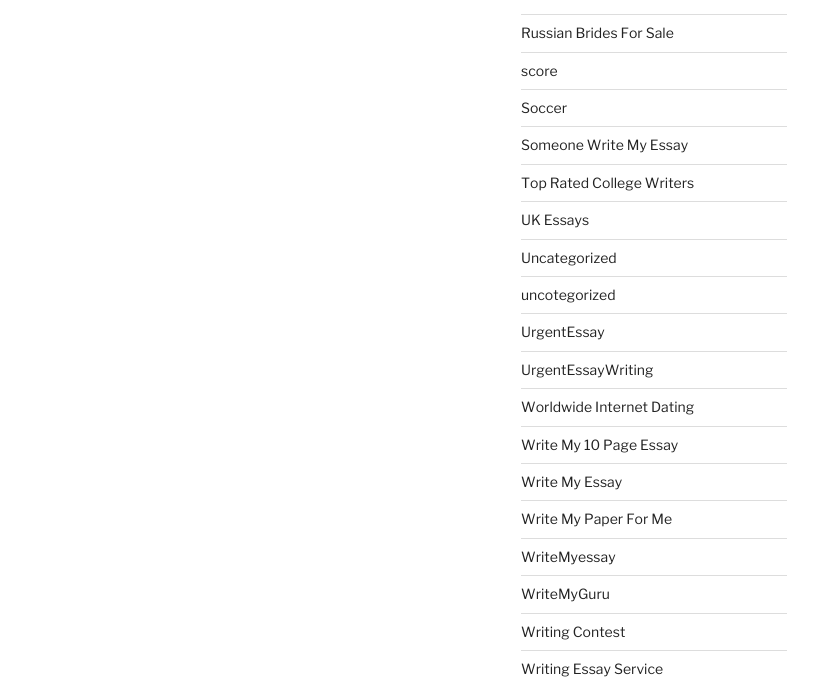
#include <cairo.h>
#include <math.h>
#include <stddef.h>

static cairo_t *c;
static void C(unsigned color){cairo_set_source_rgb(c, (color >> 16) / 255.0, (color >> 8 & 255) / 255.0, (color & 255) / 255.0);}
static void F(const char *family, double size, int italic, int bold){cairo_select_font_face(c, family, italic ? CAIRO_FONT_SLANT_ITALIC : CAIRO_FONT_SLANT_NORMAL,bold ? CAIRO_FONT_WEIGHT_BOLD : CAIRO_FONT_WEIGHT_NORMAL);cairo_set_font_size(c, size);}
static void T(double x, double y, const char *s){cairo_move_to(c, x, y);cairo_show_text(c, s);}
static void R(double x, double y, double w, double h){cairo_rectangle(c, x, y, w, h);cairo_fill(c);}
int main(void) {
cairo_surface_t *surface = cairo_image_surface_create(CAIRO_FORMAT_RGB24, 835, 687);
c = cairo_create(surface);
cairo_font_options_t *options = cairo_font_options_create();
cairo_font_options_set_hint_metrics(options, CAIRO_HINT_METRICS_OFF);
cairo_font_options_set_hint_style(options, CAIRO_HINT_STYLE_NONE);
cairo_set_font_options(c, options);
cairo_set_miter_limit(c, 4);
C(0xffffff);
cairo_paint(c);
C(0xdddddd);
R(521,14,266,1);
R(521,52,266,1);
F("Libre Franklin Thin",14,0,0);
C(0x222222);
T(521,38,"Russian Brides For Sale");
C(0xdddddd);
R(521,89,266,1);
C(0x222222);
T(521,76,"score");
C(0xdddddd);
R(521,126,266,1);
C(0x222222);
T(521,113,"Soccer");
C(0xdddddd);
R(521,164,266,1);
C(0x222222);
T(521,150,"Someone Write My Essay");
C(0xdddddd);
R(521,201,266,1);
C(0x222222);
T(521,188,"Top Rated College Writers");
C(0xdddddd);
R(521,239,266,1);
C(0x222222);
T(521,225,"UK Essays");
C(0xdddddd);
R(521,276,266,1);
C(0x222222);
T(521,263,"Uncategorized");
C(0xdddddd);
R(521,313,266,1);
C(0x222222);
T(521,300,"uncotegorized");
C(0xdddddd);
R(521,351,266,1);
C(0x222222);
T(521,337,"UrgentEssay");
C(0xdddddd);
R(521,388,266,1);
C(0x222222);
T(521,375,"UrgentEssayWriting");
C(0xdddddd);
R(521,426,266,1);
C(0x222222);
T(521,412,"Worldwide Internet Dating");
C(0xdddddd);
R(521,463,266,1);
C(0x222222);
T(521,450,"Write My 10 Page Essay");
C(0xdddddd);
R(521,500,266,1);
C(0x222222);
T(521,487,"Write My Essay");
C(0xdddddd);
R(521,538,266,1);
C(0x222222);
T(521,524,"Write My Paper For Me");
C(0xdddddd);
R(521,575,266,1);
C(0x222222);
T(521,562,"WriteMyessay");
C(0xdddddd);
R(521,613,266,1);
C(0x222222);
T(521,599,"WriteMyGuru");
C(0xdddddd);
R(521,650,266,1);
C(0x222222);
T(521,637,"Writing Contest");
T(521,674,"Writing Essay Service");
cairo_surface_write_to_png(surface, "o.png");
cairo_font_options_destroy(options);
cairo_destroy(c);
cairo_surface_destroy(surface);
return 0;
}
